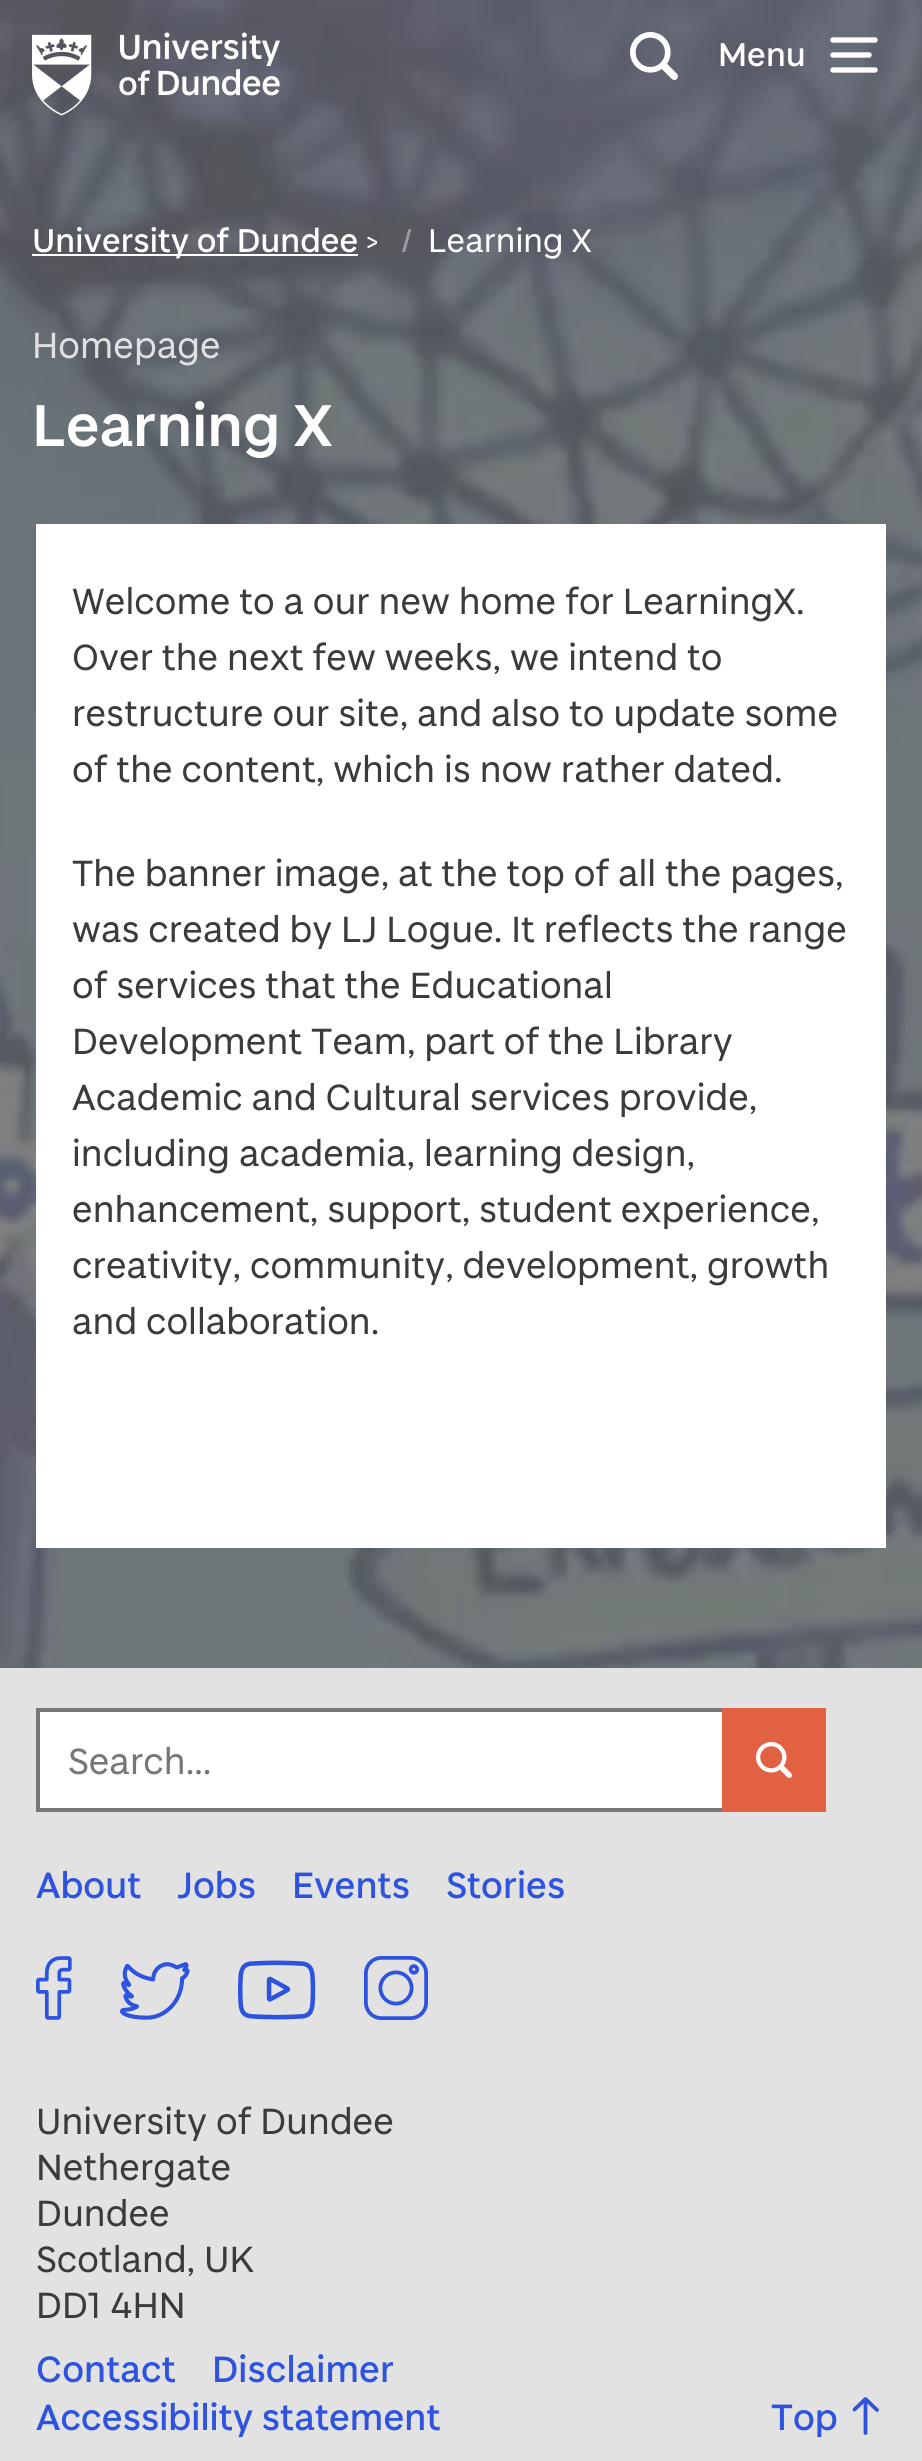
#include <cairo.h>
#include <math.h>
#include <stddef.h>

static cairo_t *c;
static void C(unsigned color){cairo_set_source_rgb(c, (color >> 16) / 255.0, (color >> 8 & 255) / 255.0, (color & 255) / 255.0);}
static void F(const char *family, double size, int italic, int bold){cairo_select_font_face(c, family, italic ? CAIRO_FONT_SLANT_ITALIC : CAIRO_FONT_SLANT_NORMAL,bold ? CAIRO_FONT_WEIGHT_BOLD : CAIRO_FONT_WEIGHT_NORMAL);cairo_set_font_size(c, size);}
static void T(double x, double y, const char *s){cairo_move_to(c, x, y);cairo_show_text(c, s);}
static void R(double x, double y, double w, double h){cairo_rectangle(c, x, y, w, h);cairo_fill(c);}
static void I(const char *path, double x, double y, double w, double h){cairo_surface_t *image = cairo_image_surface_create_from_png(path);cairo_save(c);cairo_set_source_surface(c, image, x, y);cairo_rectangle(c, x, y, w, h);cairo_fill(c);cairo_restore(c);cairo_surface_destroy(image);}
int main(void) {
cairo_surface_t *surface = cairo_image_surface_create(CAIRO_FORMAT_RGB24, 922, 2461);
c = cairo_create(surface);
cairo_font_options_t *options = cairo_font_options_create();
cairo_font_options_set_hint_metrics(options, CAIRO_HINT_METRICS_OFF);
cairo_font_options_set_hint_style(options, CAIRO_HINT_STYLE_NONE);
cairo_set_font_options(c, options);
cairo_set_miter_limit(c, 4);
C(0xffffff);
cairo_paint(c);
I("1.png",0,0,922,1668);
I("2.png",32,32,248,84);
I("3.png",630,32,48,48);
F("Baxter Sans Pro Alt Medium",36,0,0);
C(0xffffff);
T(718,66,"Menu");
cairo_new_path(c);
cairo_move_to(c,875,40);
cairo_line_to(c,833,40);
cairo_move_to(c,869,55);
cairo_line_to(c,833,55);
cairo_move_to(c,875,70);
cairo_line_to(c,833,70);
cairo_set_line_width(c,5.4);
cairo_set_line_cap(c,CAIRO_LINE_CAP_ROUND);
cairo_stroke(c);
R(32,254,326,2);
T(32,252,"University of Dundee");
F("Baxter Sans Pro Alt",32,0,0);
T(365,252,">");
F("Baxter Sans Pro Alt",36,0,0);
C(0x9a9a9f);
T(402,252,"/");
C(0xffffff);
T(428,252,"Learning X");
F("Baxter Sans Pro Alt",40,0,0);
C(0xdfe0e2);
T(32,358,"Homepage");
F("Baxter Sans Pro Alt SemiBold",64,0,0);
C(0xffffff);
T(32,446,"Learning X");
R(36,524,850,1024);
F("Baxter Sans Pro Alt",40,0,0);
C(0x3b3b3b);
T(72,614,"Welcome to a our new home for LearningX.");
T(72,670,"Over the next few weeks, we intend to");
T(72,726,"restructure our site, and also to update some");
T(72,782,"of the content, which is now rather dated.");
T(72,886,"The banner image, at the top of all the pages,");
T(72,942,"was created by LJ Logue. It reflects the range");
T(72,998,"of services that the Educational");
T(72,1054,"Development Team, part of the Library");
T(72,1110,"Academic and Cultural services provide,");
T(72,1166,"including academia, learning design,");
T(72,1222,"enhancement, support, student experience,");
T(72,1278,"creativity, community, development, growth");
T(72,1334,"and collaboration.");
C(0xe2e2e2);
R(0,1668,922,793);
C(0xffffff);
R(40,1712,682,96);
cairo_rectangle(c,38,1710,786,100);
C(0x777777);
cairo_set_line_width(c,4);
cairo_set_line_cap(c,CAIRO_LINE_CAP_BUTT);
cairo_stroke(c);
C(0x767676);
T(68,1774,"Search...");
C(0xe26143);
R(722,1708,104,104);
I("4.png",756,1742,36,36);
F("Baxter Sans Pro Alt Medium",40,0,0);
C(0x2d53df);
T(36,1898,"About");
T(177,1898,"Jobs");
T(292,1898,"Events");
T(446,1898,"Stories");
I("5.png",36,1956,36,64);
I("6.png",120,1962,70,58);
I("7.png",238,1960,78,60);
I("8.png",364,1956,64,64);
F("Baxter Sans Pro Alt",40,0,0);
C(0x3b3b3b);
T(36,2134,"University of Dundee");
T(36,2180,"Nethergate");
T(36,2226,"Dundee");
T(36,2272,"Scotland, UK");
T(36,2318,"DD1 4HN");
F("Baxter Sans Pro Alt Medium",40,0,0);
C(0x2d53df);
T(36,2382,"Contact");
T(212,2382,"Disclaimer");
T(36,2430,"Accessibility statement");
T(771,2430,"Top");
cairo_new_path(c);
cairo_move_to(c,854.5,2409.5);
cairo_line_to(c,865.5,2399);
cairo_line_to(c,877,2410);
cairo_move_to(c,865.5,2433);
cairo_line_to(c,865.5,2399.5);
cairo_set_line_width(c,3.8);
cairo_set_line_cap(c,CAIRO_LINE_CAP_ROUND);
cairo_set_line_join(c,CAIRO_LINE_JOIN_ROUND);
cairo_stroke(c);
cairo_surface_write_to_png(surface, "o.png");
cairo_font_options_destroy(options);
cairo_destroy(c);
cairo_surface_destroy(surface);
return 0;
}
